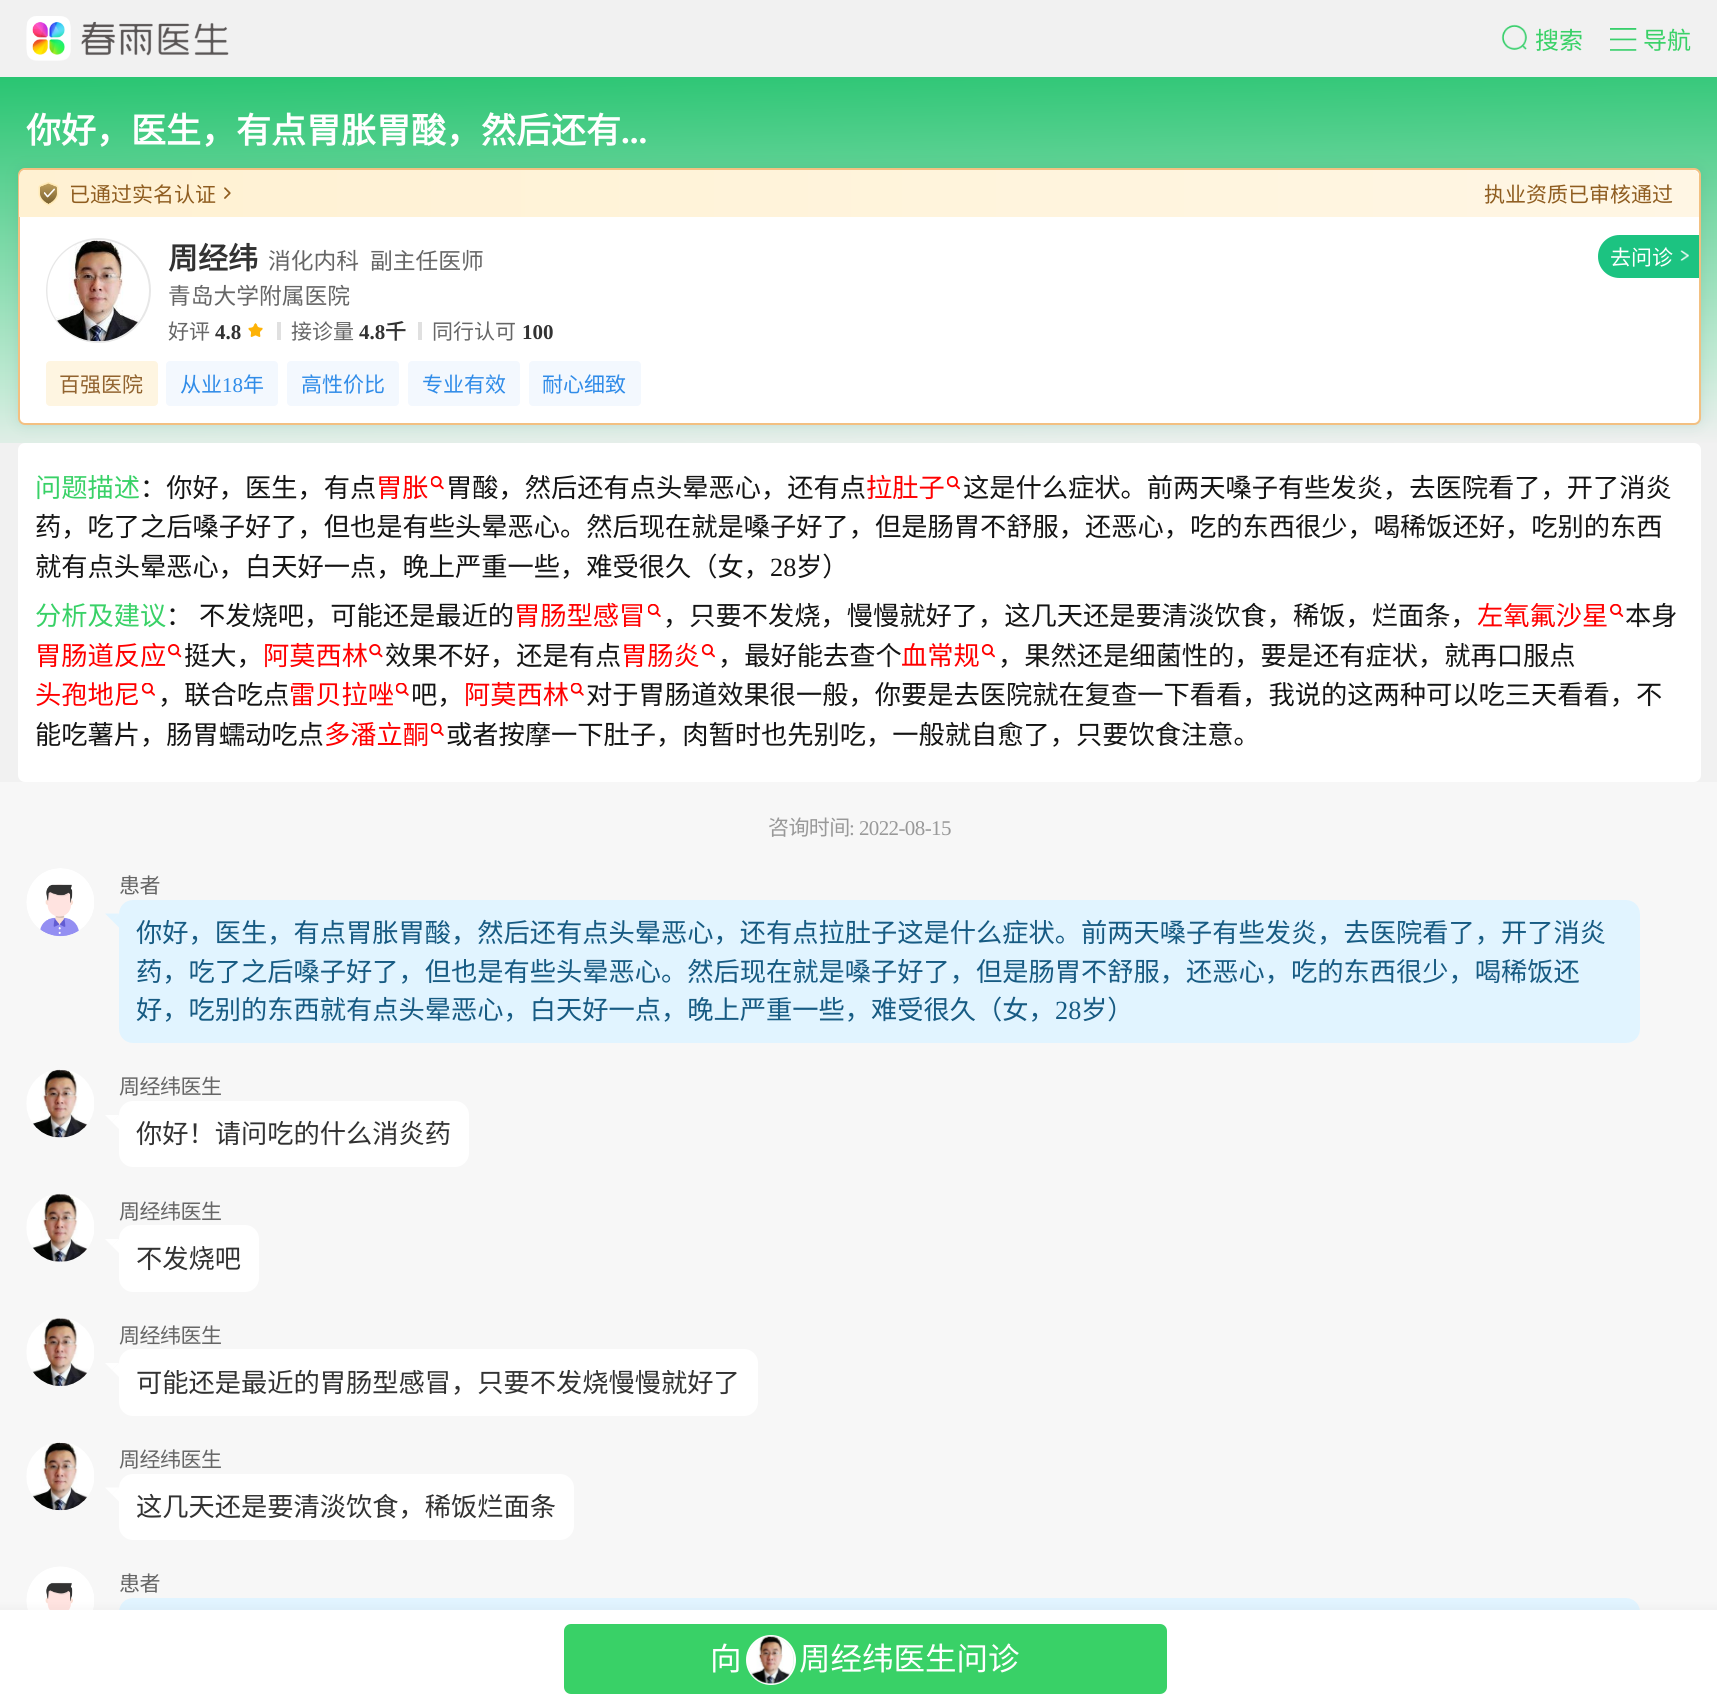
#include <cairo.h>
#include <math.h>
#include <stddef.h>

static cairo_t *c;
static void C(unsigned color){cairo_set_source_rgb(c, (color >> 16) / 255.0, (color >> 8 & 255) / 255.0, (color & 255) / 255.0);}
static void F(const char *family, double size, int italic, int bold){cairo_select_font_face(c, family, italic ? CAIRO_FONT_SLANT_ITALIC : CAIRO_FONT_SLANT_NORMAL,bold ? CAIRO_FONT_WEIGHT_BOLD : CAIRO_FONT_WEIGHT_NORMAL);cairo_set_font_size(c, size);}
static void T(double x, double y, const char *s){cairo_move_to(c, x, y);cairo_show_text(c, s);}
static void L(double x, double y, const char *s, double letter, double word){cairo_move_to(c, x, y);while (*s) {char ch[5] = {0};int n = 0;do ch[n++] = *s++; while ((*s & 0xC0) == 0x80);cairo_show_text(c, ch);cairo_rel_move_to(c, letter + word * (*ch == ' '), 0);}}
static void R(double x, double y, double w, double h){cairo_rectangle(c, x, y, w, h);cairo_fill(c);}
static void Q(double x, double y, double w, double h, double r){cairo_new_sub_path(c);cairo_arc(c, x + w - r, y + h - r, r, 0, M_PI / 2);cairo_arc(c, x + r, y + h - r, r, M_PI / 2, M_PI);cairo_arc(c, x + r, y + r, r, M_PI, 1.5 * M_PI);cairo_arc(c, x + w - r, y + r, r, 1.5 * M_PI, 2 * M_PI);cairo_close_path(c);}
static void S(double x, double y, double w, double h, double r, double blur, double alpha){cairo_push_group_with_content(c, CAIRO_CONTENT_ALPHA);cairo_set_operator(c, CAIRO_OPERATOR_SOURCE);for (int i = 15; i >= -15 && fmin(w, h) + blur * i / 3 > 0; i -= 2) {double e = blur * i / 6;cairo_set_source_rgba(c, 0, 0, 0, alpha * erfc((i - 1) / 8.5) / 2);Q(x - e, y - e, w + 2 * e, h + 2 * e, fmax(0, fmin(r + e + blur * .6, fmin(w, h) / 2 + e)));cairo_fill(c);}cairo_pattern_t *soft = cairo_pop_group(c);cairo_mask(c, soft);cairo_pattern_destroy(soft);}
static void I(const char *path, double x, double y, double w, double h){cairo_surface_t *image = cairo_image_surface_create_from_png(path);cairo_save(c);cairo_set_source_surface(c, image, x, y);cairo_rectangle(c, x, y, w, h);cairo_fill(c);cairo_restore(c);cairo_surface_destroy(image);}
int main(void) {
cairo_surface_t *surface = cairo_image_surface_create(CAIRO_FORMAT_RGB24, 1717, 1708);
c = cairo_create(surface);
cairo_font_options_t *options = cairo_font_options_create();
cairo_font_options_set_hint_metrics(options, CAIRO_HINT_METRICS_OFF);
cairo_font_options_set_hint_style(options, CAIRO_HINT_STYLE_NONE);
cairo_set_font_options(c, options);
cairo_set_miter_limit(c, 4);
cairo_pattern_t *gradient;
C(0xf1f1f1);
cairo_paint(c);
I("1.png",26,16,203,45);
I("2.png",1501,24,26,26);
F("Noto Sans CJK SC",24,0,0);
C(0x39d167);
T(1535,49,"搜索");
I("3.png",1610,28,27,23);
T(1643,49,"导航");
gradient = cairo_pattern_create_linear(856,62,863,458);
cairo_pattern_add_color_stop_rgba(gradient,0,0.161,0.773,0.447,1);
cairo_pattern_add_color_stop_rgba(gradient,.8,0.769,0.918,0.839,1);
cairo_pattern_add_color_stop_rgba(gradient,1,0.941,0.941,0.941,1);
cairo_set_source(c,gradient);
cairo_pattern_destroy(gradient);
R(0,77,1717,366);
F("Noto Sans CJK SC",35,0,1);
C(0xffffff);
T(26,143,"你好，医生，有点胃胀胃酸，然后还有");
F("Liberation Serif",35,0,1);
T(621,143,"...");
Q(18,443,1683,339,7);
cairo_fill(c);
C(0x37796d);
S(18,168,1683,257,7,7,.15);
C(0xffffff);
Q(19,169,1681,255,6);
cairo_fill_preserve(c);
C(0xf3c081);
cairo_stroke(c);
gradient = cairo_pattern_create_linear(19,193,1699,193);
cairo_pattern_add_color_stop_rgba(gradient,0,1,0.945,0.824,1);
cairo_pattern_add_color_stop_rgba(gradient,1,1,0.965,0.894,1);
cairo_set_source(c,gradient);
cairo_pattern_destroy(gradient);
cairo_new_path(c);
cairo_move_to(c,26,170);
cairo_line_to(c,1692,170);
cairo_curve_to(c,1696,170,1699,173,1699,177);
cairo_line_to(c,1699,217);
cairo_line_to(c,19,217);
cairo_line_to(c,19,177);
cairo_curve_to(c,19,173,22,170,26,170);
cairo_close_path(c);
cairo_fill(c);
I("4.png",38,182,21,24);
F("Noto Sans CJK SC",21,0,0);
C(0x8f5d20);
T(69,202,"已通过实名认证");
I("5.png",224,187,7,12);
T(1484,202,"执业资质已审核通过");
cairo_new_path(c);
cairo_arc(c,98.5,290.5,51.5,0,2 * M_PI);
C(0xe7e7e7);
cairo_stroke(c);
I("6.png",47,240,95,102);
F("Noto Sans CJK SC",30,0,1);
C(0x323232);
T(168,269,"周经纬");
F("Noto Sans CJK SC",22.75,0,0);
C(0x666666);
T(268,269,"消化内科");
T(370,269,"副主任医师");
T(168,304,"青岛大学附属医院");
F("Noto Sans CJK SC",21,0,0);
T(168,339,"好评");
F("Liberation Serif",21,0,1);
C(0x323232);
T(215,339,"4.8");
I("7.png",248,323,15,14);
C(0xe0e0e0);
R(277,322,4,18);
F("Noto Sans CJK SC",21,0,0);
C(0x666666);
T(291,339,"接诊量");
F("Liberation Serif",21,0,1);
C(0x323232);
T(359,339,"4.8");
F("Noto Sans CJK SC",21,0,1);
T(385,339,"千");
C(0xe0e0e0);
R(418,322,4,18);
F("Noto Sans CJK SC",21,0,0);
C(0x666666);
T(432,339,"同行认可");
F("Liberation Serif",21,0,1);
C(0x323232);
T(522,339,"100");
C(0x1cc381);
cairo_new_path(c);
cairo_move_to(c,1619.5,235);
cairo_line_to(c,1699,235);
cairo_line_to(c,1699,278);
cairo_line_to(c,1619.5,278);
cairo_curve_to(c,1607.5,278,1598,268.5,1598,256.5);
cairo_curve_to(c,1598,244.5,1607.5,235,1619.5,235);
cairo_close_path(c);
cairo_fill(c);
I("8.png",1680,250,9,11);
F("Noto Sans CJK SC",21,0,0);
C(0xffffff);
T(1610,265,"去问诊");
C(0xfef5e1);
Q(46,361,112,45,4);
cairo_fill(c);
C(0x91632f);
T(59,392,"百强医院");
C(0xf3f8fe);
Q(166,361,112,45,4);
cairo_fill(c);
C(0x308ce8);
T(180,392,"从业");
F("Liberation Serif",21,0,0);
T(222,392,"18");
F("Noto Sans CJK SC",21,0,0);
T(243,392,"年");
C(0xf3f8fe);
Q(287,361,112,45,4);
cairo_fill(c);
C(0x308ce8);
T(301,392,"高性价比");
C(0xf3f8fe);
Q(408,361,112,45,4);
cairo_fill(c);
C(0x308ce8);
T(422,392,"专业有效");
C(0xf3f8fe);
Q(529,361,112,45,4);
cairo_fill(c);
C(0x308ce8);
T(542,392,"耐心细致");
F("Noto Sans CJK SC",26.25,0,0);
C(0x39d167);
T(35,497,"问题描述");
C(0x141414);
T(140,497,"：你好，医生，有点");
C(0xff0000);
T(376,497,"胃胀");
I("9.png",431,476,13,14);
C(0x141414);
T(446,497,"胃酸，然后还有点头晕恶心，还有点");
C(0xff0000);
T(866,497,"拉肚子");
I("10.png",947,476,13,14);
C(0x141414);
T(963,497,"这是什么症状。前两天嗓子有些发炎，去医院看了，开了消炎");
T(35,536,"药，吃了之后嗓子好了，但也是有些头晕恶心。然后现在就是嗓子好了，但是肠胃不舒服，还恶心，吃的东西很少，喝稀饭还好，吃别的东西");
T(35,576,"就有点头晕恶心，白天好一点，晚上严重一些，难受很久（女，");
F("Liberation Serif",26.25,0,0);
T(770,576,"28");
F("Noto Sans CJK SC",26.25,0,0);
T(796,576,"岁）");
C(0x39d167);
T(35,625,"分析及建议");
C(0x141414);
T(166,625,"：");
T(199,625,"不发烧吧，可能还是最近的");
C(0xff0000);
T(514,625,"胃肠型感冒");
I("11.png",648,604,13,13);
C(0x141414);
T(663,625,"，只要不发烧，慢慢就好了，这几天还是要清淡饮食，稀饭，烂面条，");
C(0xff0000);
T(1477,625,"左氧氟沙星");
I("12.png",1610,604,14,13);
C(0x141414);
T(1625,625,"本身");
C(0xff0000);
T(35,665,"胃肠道反应");
I("13.png",168,644,14,14);
C(0x141414);
T(184,665,"挺大，");
C(0xff0000);
T(263,665,"阿莫西林");
I("14.png",369,644,14,14);
C(0x141414);
T(385,665,"效果不好，还是有点");
C(0xff0000);
T(621,665,"胃肠炎");
I("10.png",702,644,13,14);
C(0x141414);
T(718,665,"，最好能去查个");
C(0xff0000);
T(901,665,"血常规");
I("10.png",982,644,13,14);
C(0x141414);
T(998,665,"，果然还是细菌性的，要是还有症状，就再口服点");
C(0xff0000);
T(35,704,"头孢地尼");
I("15.png",142,683,13,13);
C(0x141414);
T(158,704,"，联合吃点");
C(0xff0000);
T(289,704,"雷贝拉唑");
I("16.png",396,683,13,13);
C(0x141414);
T(411,704,"吧，");
C(0xff0000);
T(464,704,"阿莫西林");
I("16.png",571,683,13,13);
C(0x141414);
T(586,704,"对于胃肠道效果很一般，你要是去医院就在复查一下看看，我说的这两种可以吃三天看看，不");
T(35,744,"能吃薯片，肠胃蠕动吃点");
C(0xff0000);
T(324,744,"多潘立酮");
I("11.png",431,723,13,13);
C(0x141414);
T(446,744,"或者按摩一下肚子，肉暂时也先别吃，一般就自愈了，只要饮食注意。");
C(0xf7f7f7);
R(0,782,1717,828);
F("Noto Sans CJK SC",21,0,0);
C(0x999999);
L(768,835,"咨询时间",-.6,0);
F("Liberation Serif",21,0,0);
L(849,835,": 2022-08-15",-.6,0);
I("17.png",26,868,68,69);
F("Noto Sans CJK SC",21,0,0);
C(0x666666);
L(119,893,"患者",-.5,0);
C(0xe1f4ff);
Q(119,900,1521,143,14);
cairo_fill(c);
cairo_new_path(c);
cairo_move_to(c,105,913.5);
cairo_line_to(c,119,913.5);
cairo_line_to(c,112,920.5);
cairo_close_path(c);
cairo_fill(c);
cairo_new_path(c);
cairo_move_to(c,119,913.5);
cairo_line_to(c,119,927.5);
cairo_line_to(c,112,920.5);
cairo_close_path(c);
cairo_fill(c);
F("Noto Sans CJK SC",26.25,0,0);
C(0x175b83);
T(136,942,"你好，医生，有点胃胀胃酸，然后还有点头晕恶心，还有点拉肚子这是什么症状。前两天嗓子有些发炎，去医院看了，开了消炎");
T(136,981,"药，吃了之后嗓子好了，但也是有些头晕恶心。然后现在就是嗓子好了，但是肠胃不舒服，还恶心，吃的东西很少，喝稀饭还");
T(136,1019,"好，吃别的东西就有点头晕恶心，白天好一点，晚上严重一些，难受很久（女，");
F("Liberation Serif",26.25,0,0);
T(1055,1019,"28");
F("Noto Sans CJK SC",26.25,0,0);
T(1081,1019,"岁）");
I("18.png",26,1069,68,69);
F("Noto Sans CJK SC",21,0,0);
C(0x666666);
L(119,1094,"周经纬医生",-.5,0);
C(0xffffff);
Q(119,1101,350,66,14);
cairo_fill(c);
cairo_new_path(c);
cairo_move_to(c,105,1115);
cairo_line_to(c,119,1115);
cairo_line_to(c,112,1122);
cairo_close_path(c);
cairo_fill(c);
cairo_new_path(c);
cairo_move_to(c,119,1115);
cairo_line_to(c,119,1129);
cairo_line_to(c,112,1122);
cairo_close_path(c);
cairo_fill(c);
F("Noto Sans CJK SC",26.25,0,0);
C(0x323232);
T(136,1143,"你好！请问吃的什么消炎药");
I("19.png",26,1193,68,69);
F("Noto Sans CJK SC",21,0,0);
C(0x666666);
L(119,1219,"周经纬医生",-.5,0);
C(0xffffff);
Q(119,1225,140,67,14);
cairo_fill(c);
cairo_new_path(c);
cairo_move_to(c,105,1239);
cairo_line_to(c,119,1239);
cairo_line_to(c,112,1246);
cairo_close_path(c);
cairo_fill(c);
cairo_new_path(c);
cairo_move_to(c,119,1239);
cairo_line_to(c,119,1253);
cairo_line_to(c,112,1246);
cairo_close_path(c);
cairo_fill(c);
F("Noto Sans CJK SC",26.25,0,0);
C(0x323232);
T(136,1268,"不发烧吧");
I("20.png",26,1318,68,68);
F("Noto Sans CJK SC",21,0,0);
C(0x666666);
L(119,1343,"周经纬医生",-.5,0);
C(0xffffff);
Q(119,1349,639,67,14);
cairo_fill(c);
cairo_new_path(c);
cairo_move_to(c,105,1363);
cairo_line_to(c,119,1363);
cairo_line_to(c,112,1370);
cairo_close_path(c);
cairo_fill(c);
cairo_new_path(c);
cairo_move_to(c,119,1363);
cairo_line_to(c,119,1377);
cairo_line_to(c,112,1370);
cairo_close_path(c);
cairo_fill(c);
F("Noto Sans CJK SC",26.25,0,0);
C(0x323232);
T(136,1392,"可能还是最近的胃肠型感冒，只要不发烧慢慢就好了");
I("21.png",26,1442,68,69);
F("Noto Sans CJK SC",21,0,0);
C(0x666666);
L(119,1467,"周经纬医生",-.5,0);
C(0xffffff);
Q(119,1474,455,66,14);
cairo_fill(c);
cairo_new_path(c);
cairo_move_to(c,105,1487.5);
cairo_line_to(c,119,1487.5);
cairo_line_to(c,112,1494.5);
cairo_close_path(c);
cairo_fill(c);
cairo_new_path(c);
cairo_move_to(c,119,1487.5);
cairo_line_to(c,119,1501.5);
cairo_line_to(c,112,1494.5);
cairo_close_path(c);
cairo_fill(c);
F("Noto Sans CJK SC",26.25,0,0);
C(0x323232);
T(136,1516,"这几天还是要清淡饮食，稀饭烂面条");
I("22.png",26,1566,68,44);
F("Noto Sans CJK SC",21,0,0);
C(0x666666);
L(119,1591,"患者",-.5,0);
C(0xe1f4ff);
Q(119,1598,1521,105,14);
cairo_fill(c);
C(0x000000);
S(-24,1614,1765,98,0,8,.08);
C(0xffffff);
R(0,1610,1717,98);
C(0x39d167);
Q(564,1624,603,70,7);
cairo_fill(c);
F("Noto Sans CJK SC",31.5,0,0);
C(0xffffff);
T(710,1670,"向");
cairo_new_path(c);
cairo_arc(c,771,1660,24,0,2 * M_PI);
cairo_stroke(c);
I("23.png",748,1636,46,48);
T(799,1670,"周经纬医生问诊");
cairo_surface_write_to_png(surface, "o.png");
cairo_font_options_destroy(options);
cairo_destroy(c);
cairo_surface_destroy(surface);
return 0;
}
